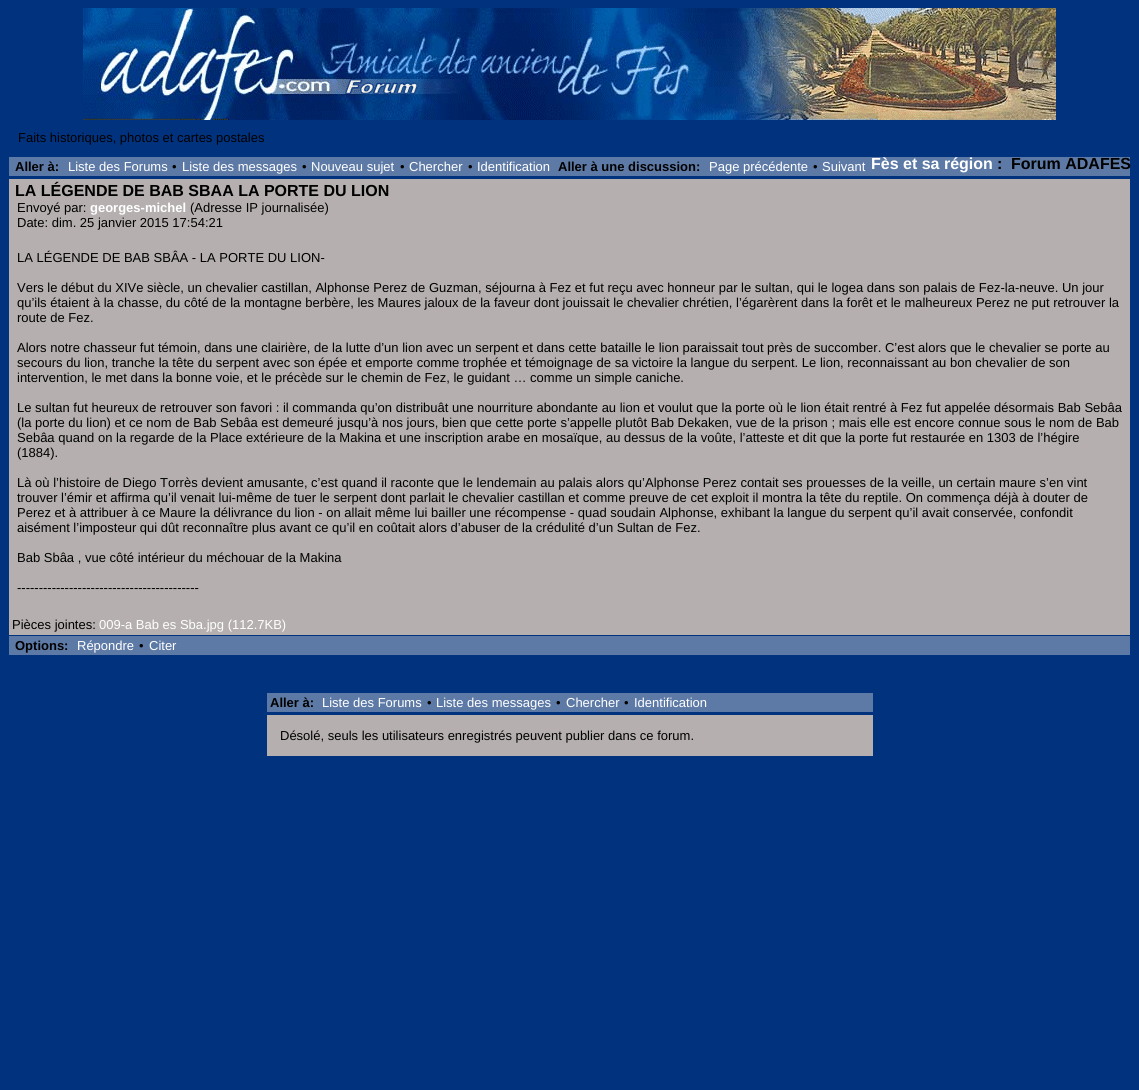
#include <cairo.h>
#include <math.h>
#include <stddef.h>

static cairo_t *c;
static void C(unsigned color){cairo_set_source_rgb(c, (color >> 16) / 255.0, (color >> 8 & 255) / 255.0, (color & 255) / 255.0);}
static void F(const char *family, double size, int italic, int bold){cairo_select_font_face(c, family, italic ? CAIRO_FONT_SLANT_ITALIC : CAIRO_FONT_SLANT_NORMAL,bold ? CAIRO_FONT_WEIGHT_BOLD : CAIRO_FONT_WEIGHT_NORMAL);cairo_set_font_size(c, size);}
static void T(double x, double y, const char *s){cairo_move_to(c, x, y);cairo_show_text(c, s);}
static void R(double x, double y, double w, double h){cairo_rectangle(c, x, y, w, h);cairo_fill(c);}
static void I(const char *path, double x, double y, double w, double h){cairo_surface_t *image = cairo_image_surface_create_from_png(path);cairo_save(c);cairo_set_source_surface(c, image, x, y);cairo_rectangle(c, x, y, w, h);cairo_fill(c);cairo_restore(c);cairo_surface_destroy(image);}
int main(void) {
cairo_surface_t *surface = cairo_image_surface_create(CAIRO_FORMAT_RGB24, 1139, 1090);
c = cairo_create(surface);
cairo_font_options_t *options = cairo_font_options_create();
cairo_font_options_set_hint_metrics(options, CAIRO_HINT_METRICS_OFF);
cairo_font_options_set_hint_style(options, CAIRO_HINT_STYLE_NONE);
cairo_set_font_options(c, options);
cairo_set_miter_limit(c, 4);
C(0x01327e);
cairo_paint(c);
I("1.png",83,8,973,112);
F("Liberation Sans",13,0,0);
C(0x000000);
T(18,142,"Faits historiques, photos et cartes postales");
C(0x5d7aa6);
R(9,157,1121,19);
F("Liberation Sans",13,0,1);
C(0x000000);
T(15,171,"Aller à:");
F("Liberation Sans",13,0,0);
C(0xffffff);
T(68,171,"Liste des Forums");
C(0x000000);
T(172,171,"•");
C(0xffffff);
T(182,171,"Liste des messages");
C(0x000000);
T(302,171,"•");
C(0xffffff);
T(311,171,"Nouveau sujet");
C(0x000000);
T(400,171,"•");
C(0xffffff);
T(409,171,"Chercher");
C(0x000000);
T(468,171,"•");
C(0xffffff);
T(477,171,"Identification");
F("Liberation Sans",13,0,1);
C(0x000000);
T(558,171,"Aller à une discussion:");
F("Liberation Sans",13,0,0);
C(0xffffff);
T(709,171,"Page précédente");
C(0x000000);
T(813,171,"•");
C(0xffffff);
T(822,171,"Suivant");
F("Liberation Sans",16,0,1);
T(871,169,"Fès et sa région");
C(0x000000);
T(997,169,":");
T(1011,169,"Forum ADAFES");
C(0xb5afaf);
R(9,179,1121,456);
C(0x000000);
T(15,196,"LA LÉGENDE DE BAB SBAA LA PORTE DU LION");
F("Liberation Sans",13,0,0);
T(17,212,"Envoyé par:");
F("Liberation Sans",13,0,1);
C(0xffffff);
T(90,212,"georges-michel");
F("Liberation Sans",13,0,0);
C(0x000000);
T(190,212,"(Adresse IP journalisée)");
T(17,227,"Date: dim. 25 janvier 2015 17:54:21");
T(17,262,"LA LÉGENDE DE BAB SBÂA - LA PORTE DU LION-");
T(17,292,"Vers le début du XIVe siècle, un chevalier castillan, Alphonse Perez de Guzman, séjourna à Fez et fut reçu avec honneur par le sultan, qui le logea dans son palais de Fez-la-neuve. Un jour");
T(17,307,"qu’ils étaient à la chasse, du côté de la montagne berbère, les Maures jaloux de la faveur dont jouissait le chevalier chrétien, l’égarèrent dans la forêt et le malheureux Perez ne put retrouver la");
T(17,322,"route de Fez.");
T(17,352,"Alors notre chasseur fut témoin, dans une clairière, de la lutte d’un lion avec un serpent et dans cette bataille le lion paraissait tout près de succomber. C’est alors que le chevalier se porte au");
T(17,367,"secours du lion, tranche la tête du serpent avec son épée et emporte comme trophée et témoignage de sa victoire la langue du serpent. Le lion, reconnaissant au bon chevalier de son");
T(17,382,"intervention, le met dans la bonne voie, et le précède sur le chemin de Fez, le guidant … comme un simple caniche.");
T(17,412,"Le sultan fut heureux de retrouver son favori : il commanda qu’on distribuât une nourriture abondante au lion et voulut que la porte où le lion était rentré à Fez fut appelée désormais Bab Sebâa");
T(17,427,"(la porte du lion) et ce nom de Bab Sebâa est demeuré jusqu’à nos jours, bien que cette porte s’appelle plutôt Bab Dekaken, vue de la prison ; mais elle est encore connue sous le nom de Bab");
T(17,442,"Sebâa quand on la regarde de la Place extérieure de la Makina et une inscription arabe en mosaïque, au dessus de la voûte, l’atteste et dit que la porte fut restaurée en 1303 de l’hégire");
T(17,457,"(1884).");
T(17,487,"Là où l’histoire de Diego Torrès devient amusante, c’est quand il raconte que le lendemain au palais alors qu’Alphonse Perez contait ses prouesses de la veille, un certain maure s’en vint");
T(17,502,"trouver l’émir et affirma qu’il venait lui-même de tuer le serpent dont parlait le chevalier castillan et comme preuve de cet exploit il montra la tête du reptile. On commença déjà à douter de");
T(17,517,"Perez et à attribuer à ce Maure la délivrance du lion - on allait même lui bailler une récompense - quad soudain Alphonse, exhibant la langue du serpent qu’il avait conservée, confondit");
T(17,532,"aisément l’imposteur qui dût reconnaître plus avant ce qu’il en coûtait alors d’abuser de la crédulité d’un Sultan de Fez.");
T(17,562,"Bab Sbâa , vue côté intérieur du méchouar de la Makina");
T(17,592,"------------------------------------------");
T(12,629,"Pièces jointes:");
C(0xffffff);
T(99,629,"009-a Bab es Sba.jpg (112.7KB)");
C(0x5d7aa6);
R(9,636,1121,19);
F("Liberation Sans",13,0,1);
C(0x000000);
T(15,650,"Options:");
F("Liberation Sans",13,0,0);
C(0xffffff);
T(77,650,"Répondre");
C(0x000000);
T(139,650,"•");
C(0xffffff);
T(149,650,"Citer");
C(0x5d7aa6);
R(267,693,606,19);
F("Liberation Sans",13,0,1);
C(0x000000);
T(270,707,"Aller à:");
F("Liberation Sans",13,0,0);
C(0xffffff);
T(322,707,"Liste des Forums");
C(0x000000);
T(427,707,"•");
C(0xffffff);
T(436,707,"Liste des messages");
C(0x000000);
T(556,707,"•");
C(0xffffff);
T(566,707,"Chercher");
C(0x000000);
T(624,707,"•");
C(0xffffff);
T(634,707,"Identification");
C(0xb5afaf);
R(267,715,606,41);
C(0x000000);
T(280,740,"Désolé, seuls les utilisateurs enregistrés peuvent publier dans ce forum.");
cairo_surface_write_to_png(surface, "o.png");
cairo_font_options_destroy(options);
cairo_destroy(c);
cairo_surface_destroy(surface);
return 0;
}
